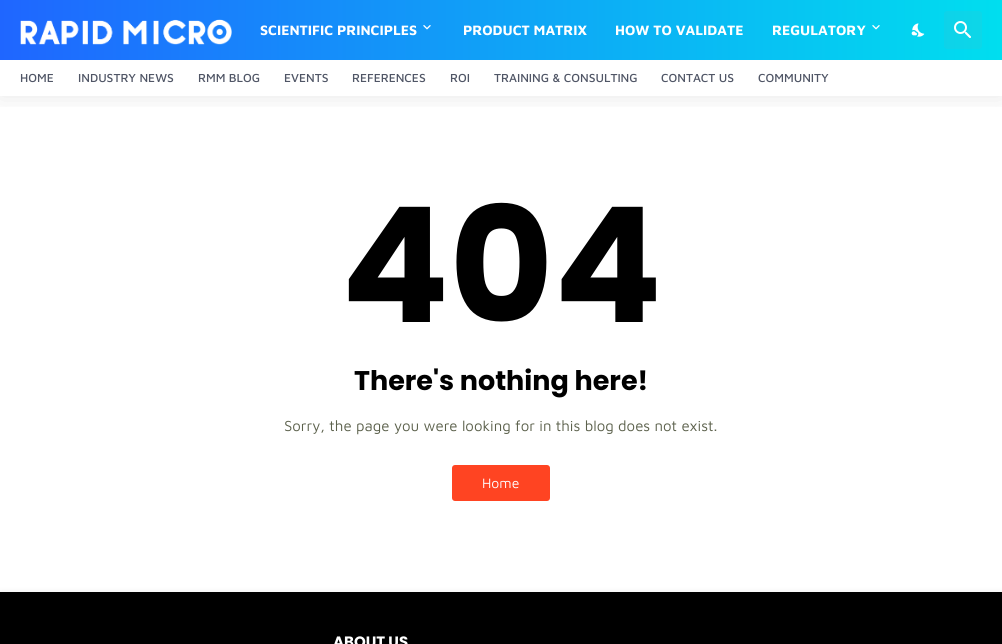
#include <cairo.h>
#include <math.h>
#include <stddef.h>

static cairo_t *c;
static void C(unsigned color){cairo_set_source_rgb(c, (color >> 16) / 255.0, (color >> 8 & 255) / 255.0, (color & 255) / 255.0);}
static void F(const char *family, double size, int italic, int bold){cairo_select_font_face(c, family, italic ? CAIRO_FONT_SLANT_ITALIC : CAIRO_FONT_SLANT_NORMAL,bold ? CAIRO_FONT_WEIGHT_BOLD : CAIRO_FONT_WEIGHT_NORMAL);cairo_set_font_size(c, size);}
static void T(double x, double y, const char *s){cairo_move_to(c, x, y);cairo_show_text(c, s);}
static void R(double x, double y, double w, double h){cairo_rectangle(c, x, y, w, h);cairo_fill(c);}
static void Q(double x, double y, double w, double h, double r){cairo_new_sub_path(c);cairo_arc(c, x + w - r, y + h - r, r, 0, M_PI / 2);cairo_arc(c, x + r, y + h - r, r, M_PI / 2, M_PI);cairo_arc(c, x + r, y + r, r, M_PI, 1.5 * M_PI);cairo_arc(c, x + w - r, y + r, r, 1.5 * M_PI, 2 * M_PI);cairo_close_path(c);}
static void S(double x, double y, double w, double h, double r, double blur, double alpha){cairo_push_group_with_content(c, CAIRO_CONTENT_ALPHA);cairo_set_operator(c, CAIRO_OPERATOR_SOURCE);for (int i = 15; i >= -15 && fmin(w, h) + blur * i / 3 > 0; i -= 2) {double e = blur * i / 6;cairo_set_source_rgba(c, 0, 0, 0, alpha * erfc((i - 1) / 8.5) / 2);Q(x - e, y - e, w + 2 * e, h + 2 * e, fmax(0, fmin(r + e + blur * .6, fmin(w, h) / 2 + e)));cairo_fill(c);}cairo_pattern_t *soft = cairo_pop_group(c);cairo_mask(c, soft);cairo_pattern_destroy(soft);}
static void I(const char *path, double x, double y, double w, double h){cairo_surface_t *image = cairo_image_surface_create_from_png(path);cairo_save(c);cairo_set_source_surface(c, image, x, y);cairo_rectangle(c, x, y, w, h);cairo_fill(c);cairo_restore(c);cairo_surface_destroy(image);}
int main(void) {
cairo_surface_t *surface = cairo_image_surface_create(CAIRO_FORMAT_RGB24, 1002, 644);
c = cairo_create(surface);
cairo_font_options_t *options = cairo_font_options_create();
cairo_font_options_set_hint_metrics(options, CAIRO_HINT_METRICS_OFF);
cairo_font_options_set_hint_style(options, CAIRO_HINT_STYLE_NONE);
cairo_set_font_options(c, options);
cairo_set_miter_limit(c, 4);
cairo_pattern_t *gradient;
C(0xffffff);
cairo_paint(c);
cairo_save(c);
cairo_rectangle(c,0,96,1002,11);
cairo_clip(c);
C(0x000000);
S(0,0,1002,96,0,12.5,.1);
cairo_restore(c);
gradient = cairo_pattern_create_linear(0,30,1002,30);
cairo_pattern_add_color_stop_rgba(gradient,0,0.122,0.4,1,1);
cairo_pattern_add_color_stop_rgba(gradient,1,0,0.871,0.937,1);
cairo_set_source(c,gradient);
cairo_pattern_destroy(gradient);
R(0,0,1002,60);
I("1.png",20,19,212,26);
F("Maven Pro",14,0,1);
C(0xffffff);
T(260,35,"SCIENTIFIC PRINCIPLES");
I("2.png",423,25,8,5);
T(463,35,"PRODUCT MATRIX");
T(615,35,"HOW TO VALIDATE");
T(772,35,"REGULATORY");
I("3.png",872,25,8,5);
I("4.png",911,23,14,14);
cairo_set_source_rgba(c,0.608,0.608,0.608,0.08);
Q(944,11,38,38,3);
cairo_fill(c);
I("5.png",954,21,17,17);
F("Maven Pro Medium",12,0,0);
C(0x505666);
T(20,82,"HOME");
T(78,82,"INDUSTRY NEWS");
T(198,82,"RMM BLOG");
T(284,82,"EVENTS");
T(352,82,"REFERENCES");
T(450,82,"ROI");
T(494,82,"TRAINING & CONSULTING");
T(661,82,"CONTACT US");
T(758,82,"COMMUNITY");
F("Poppins",160,0,1);
C(0x000000);
T(341,322,"404");
F("Poppins",27,0,1);
T(354,390,"There's nothing here!");
F("Maven Pro",15,0,0);
C(0x5c614c);
T(284,431,"Sorry, the page you were looking for in this blog does not exist.");
C(0xff4422);
Q(452,465,98,36,3);
cairo_fill(c);
F("Maven Pro",14,0,0);
C(0xffffff);
T(482,488,"Home");
C(0x000000);
S(0,594,1002,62,0,4,.1);
C(0x000000);
R(0,592,1002,52);
F("Poppins",15,0,1);
C(0xffffff);
T(333,647,"ABOUT US");
cairo_surface_write_to_png(surface, "o.png");
cairo_font_options_destroy(options);
cairo_destroy(c);
cairo_surface_destroy(surface);
return 0;
}
